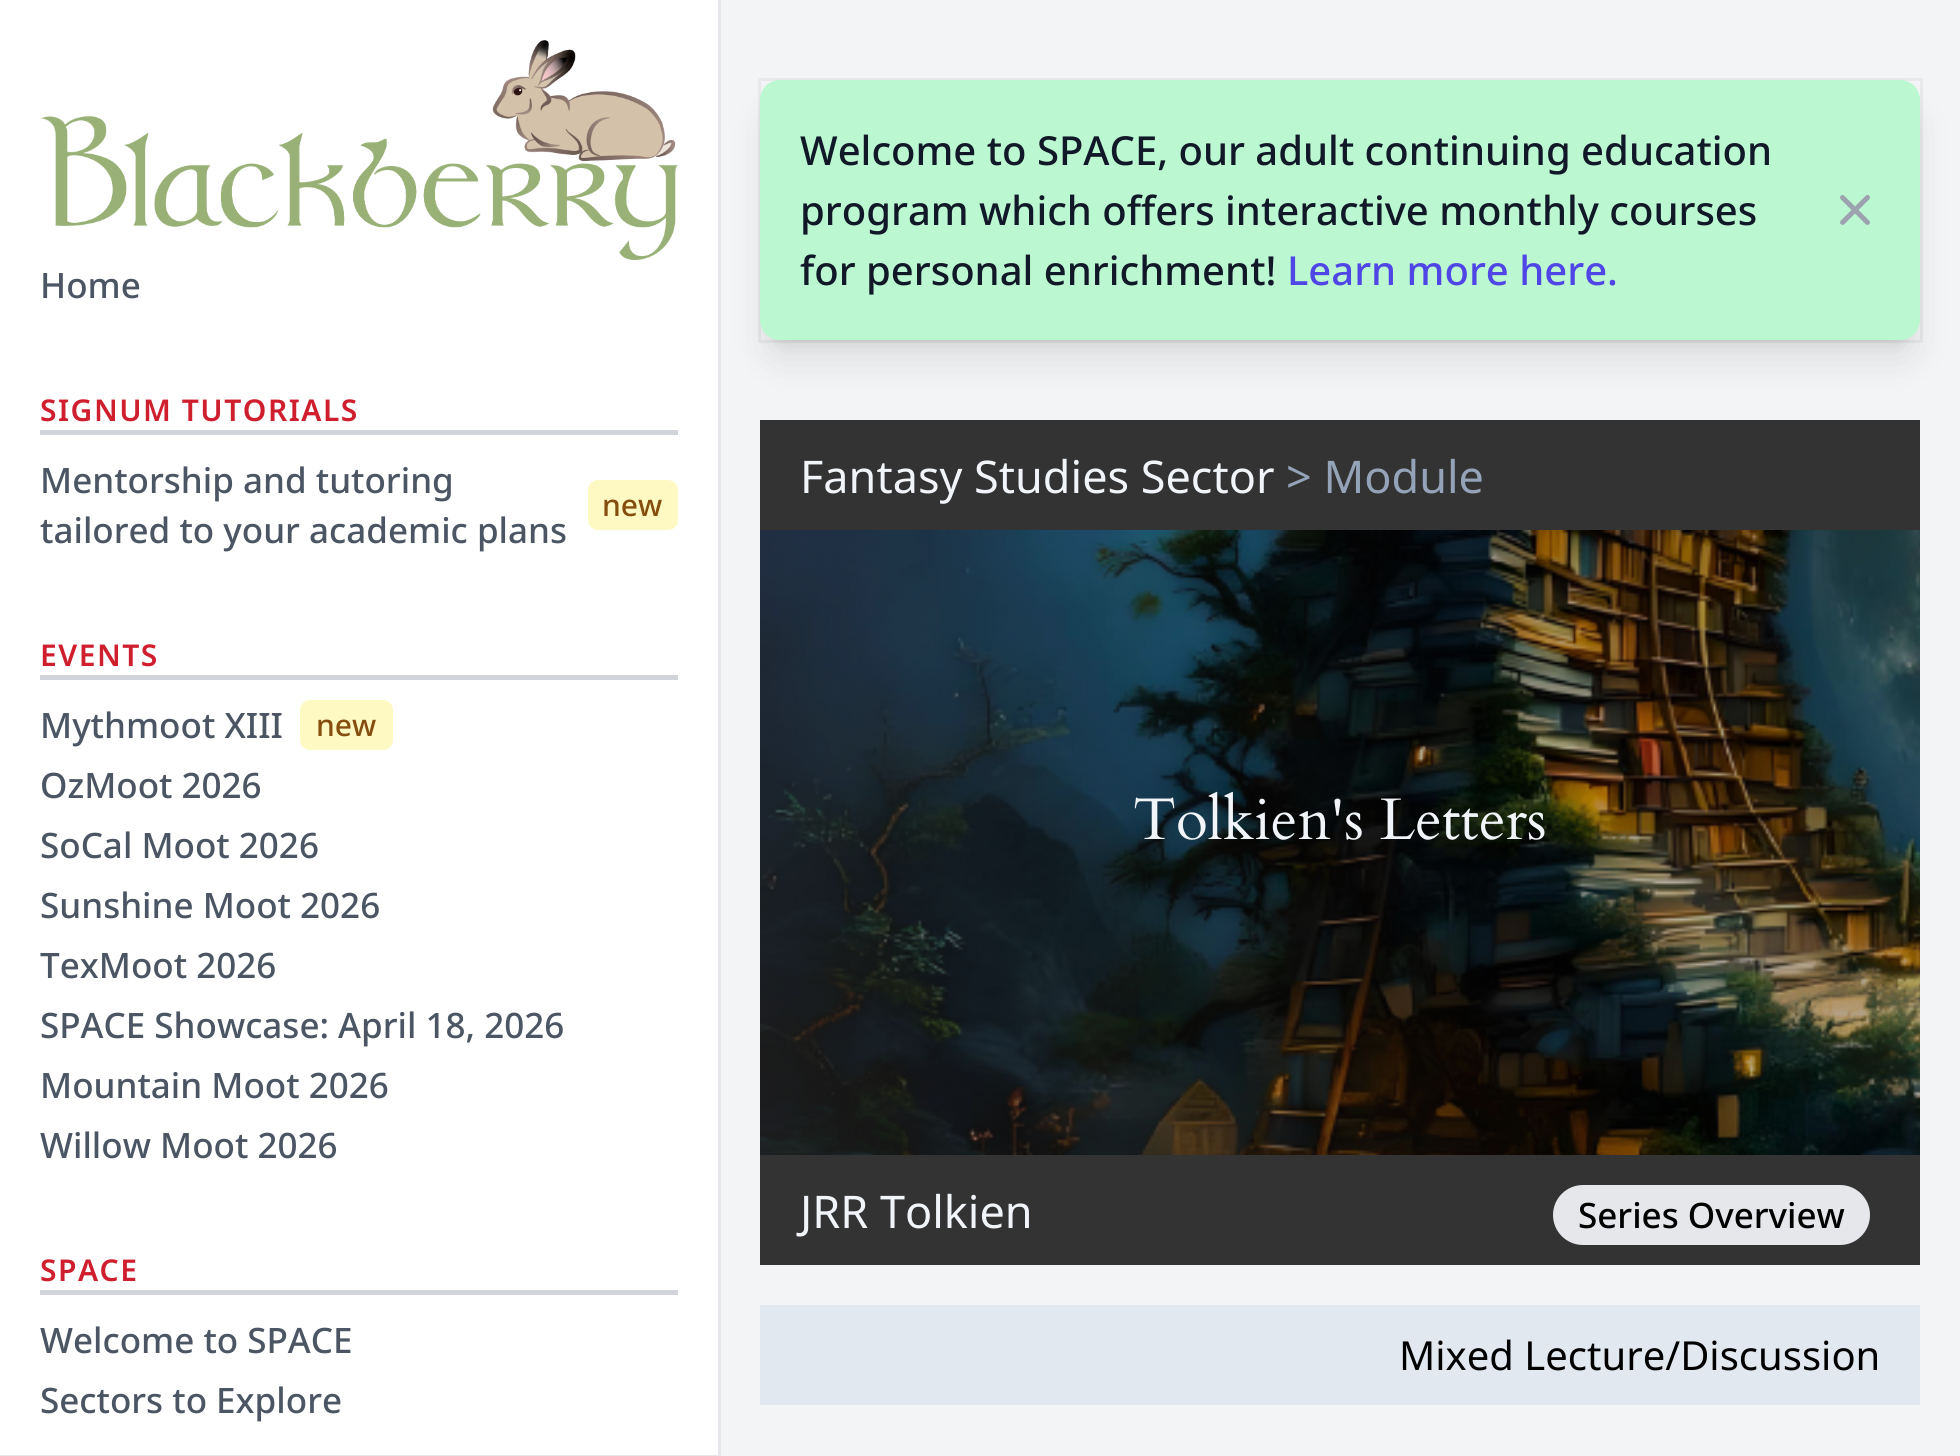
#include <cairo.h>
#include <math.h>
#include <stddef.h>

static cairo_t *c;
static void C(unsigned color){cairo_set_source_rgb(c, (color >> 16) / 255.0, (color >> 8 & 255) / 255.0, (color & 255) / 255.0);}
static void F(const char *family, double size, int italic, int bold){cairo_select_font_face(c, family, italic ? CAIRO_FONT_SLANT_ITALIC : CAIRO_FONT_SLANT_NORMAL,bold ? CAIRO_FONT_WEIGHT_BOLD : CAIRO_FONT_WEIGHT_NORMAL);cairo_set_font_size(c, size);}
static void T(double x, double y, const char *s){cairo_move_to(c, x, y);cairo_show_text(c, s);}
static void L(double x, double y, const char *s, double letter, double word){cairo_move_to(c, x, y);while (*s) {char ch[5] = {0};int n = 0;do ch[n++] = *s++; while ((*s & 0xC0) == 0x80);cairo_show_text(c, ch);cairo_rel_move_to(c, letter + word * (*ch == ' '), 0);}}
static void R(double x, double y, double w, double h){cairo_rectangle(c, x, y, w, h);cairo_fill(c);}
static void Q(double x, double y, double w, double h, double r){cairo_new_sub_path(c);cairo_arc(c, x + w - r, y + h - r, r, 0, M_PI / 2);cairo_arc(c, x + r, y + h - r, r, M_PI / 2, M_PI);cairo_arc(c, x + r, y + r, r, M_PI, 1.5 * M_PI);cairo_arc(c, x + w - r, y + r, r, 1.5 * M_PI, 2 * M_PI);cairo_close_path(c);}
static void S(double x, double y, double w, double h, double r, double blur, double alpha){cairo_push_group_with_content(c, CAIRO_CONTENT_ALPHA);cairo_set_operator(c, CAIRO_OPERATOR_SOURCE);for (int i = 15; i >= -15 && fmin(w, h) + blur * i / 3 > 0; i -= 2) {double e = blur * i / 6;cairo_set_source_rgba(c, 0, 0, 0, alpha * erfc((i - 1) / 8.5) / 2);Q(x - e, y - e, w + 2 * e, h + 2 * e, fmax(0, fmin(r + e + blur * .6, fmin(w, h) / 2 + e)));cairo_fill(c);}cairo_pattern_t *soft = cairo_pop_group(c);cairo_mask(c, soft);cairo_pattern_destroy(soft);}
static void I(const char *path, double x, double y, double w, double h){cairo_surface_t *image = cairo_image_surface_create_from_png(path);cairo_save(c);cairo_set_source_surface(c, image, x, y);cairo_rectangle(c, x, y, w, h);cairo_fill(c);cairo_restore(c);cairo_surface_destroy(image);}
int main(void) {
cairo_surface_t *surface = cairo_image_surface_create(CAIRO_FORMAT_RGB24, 1960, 1456);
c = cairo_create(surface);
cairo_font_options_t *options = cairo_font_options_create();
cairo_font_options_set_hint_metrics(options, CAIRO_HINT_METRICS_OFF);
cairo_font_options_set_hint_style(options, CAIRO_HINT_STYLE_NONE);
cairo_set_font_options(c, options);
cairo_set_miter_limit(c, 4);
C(0xf3f4f6);
cairo_paint(c);
C(0x000000);
S(768,113,1145,245,13,19,.1);
C(0xffffff);
R(0,0,718,1455);
C(0xe5e7eb);
R(718,0,3,1456);
R(0,1455,720,1);
I("1.png",40,40,638,220);
F("Noto Sans Medium",35,0,0);
C(0x4b5563);
T(40,298,"Home");
C(0xd1d5db);
R(40,430,638,5);
F("Noto Sans SemiBold",30,0,0);
C(0xcf1f2e);
L(40,421,"SIGNUM TUTORIALS",1.5,0);
F("Noto Sans Medium",35,0,0);
C(0x4b5563);
T(40,493,"Mentorship and tutoring");
C(0xfef9c3);
Q(588,480,90,50,10);
cairo_fill(c);
F("Noto Sans Medium",30,0,0);
C(0x854d0e);
T(602,516,"new");
F("Noto Sans Medium",35,0,0);
C(0x4b5563);
T(40,543,"tailored to your academic plans");
C(0xd1d5db);
R(40,675,638,5);
F("Noto Sans SemiBold",30,0,0);
C(0xcf1f2e);
L(40,666,"EVENTS",1.5,0);
F("Noto Sans Medium",35,0,0);
C(0x4b5563);
T(40,738,"Mythmoot XIII");
C(0xfef9c3);
Q(300,700,93,50,10);
cairo_fill(c);
F("Noto Sans Medium",30,0,0);
C(0x854d0e);
T(316,736,"new");
F("Noto Sans Medium",35,0,0);
C(0x4b5563);
T(40,798,"OzMoot 2026");
T(40,858,"SoCal Moot 2026");
T(40,918,"Sunshine Moot 2026");
T(40,978,"TexMoot 2026");
T(40,1038,"SPACE Showcase: April 18, 2026");
T(40,1098,"Mountain Moot 2026");
T(40,1158,"Willow Moot 2026");
C(0xd1d5db);
R(40,1290,638,5);
F("Noto Sans SemiBold",30,0,0);
C(0xcf1f2e);
L(40,1281,"SPACE",1.5,0);
F("Noto Sans Medium",35,0,0);
C(0x4b5563);
T(40,1353,"Welcome to SPACE");
T(40,1413,"Sectors to Explore");
C(0x000000);
S(770,100,1140,240,10,7.5,.1);
cairo_rectangle(c,759.5,79.5,1162,262);
cairo_set_source_rgba(c,0,0,0,0.05);
cairo_set_line_width(c,3);
cairo_stroke(c);
C(0xbbf7d0);
Q(760,80,1160,260,20);
cairo_fill(c);
F("Noto Sans Medium",40,0,0);
C(0x111827);
T(800,165,"Welcome to SPACE, our adult continuing education");
T(800,225,"program which offers interactive monthly courses");
T(800,285,"for personal enrichment!");
C(0x4f46e5);
T(1287,285,"Learn more here.");
I("2.png",1840,195,30,30);
C(0x333333);
R(760,420,1160,110);
F("Noto Sans",45,0,0);
C(0xf1f5f9);
T(800,493,"Fantasy Studies Sector");
C(0x94a3b8);
T(1286,493,"> Module");
I("3.png",760,530,1160,625);
F("Cardo",58.75,0,0);
C(0xf1f5f9);
T(1133,839,"Tolkien's Letters");
C(0x333333);
R(760,1155,1160,110);
F("Noto Sans",45,0,0);
C(0xf1f5f9);
T(800,1228,"JRR Tolkien");
C(0xe5e7eb);
Q(1553,1185,317,60,30);
cairo_fill(c);
F("Noto Sans Medium",35,0,0);
C(0x000000);
T(1578,1228,"Series Overview");
C(0xe2e8f0);
R(760,1305,1160,100);
F("Noto Sans",40,0,0);
C(0x000000);
T(1399,1370,"Mixed Lecture/Discussion");
cairo_surface_write_to_png(surface, "o.png");
cairo_font_options_destroy(options);
cairo_destroy(c);
cairo_surface_destroy(surface);
return 0;
}
